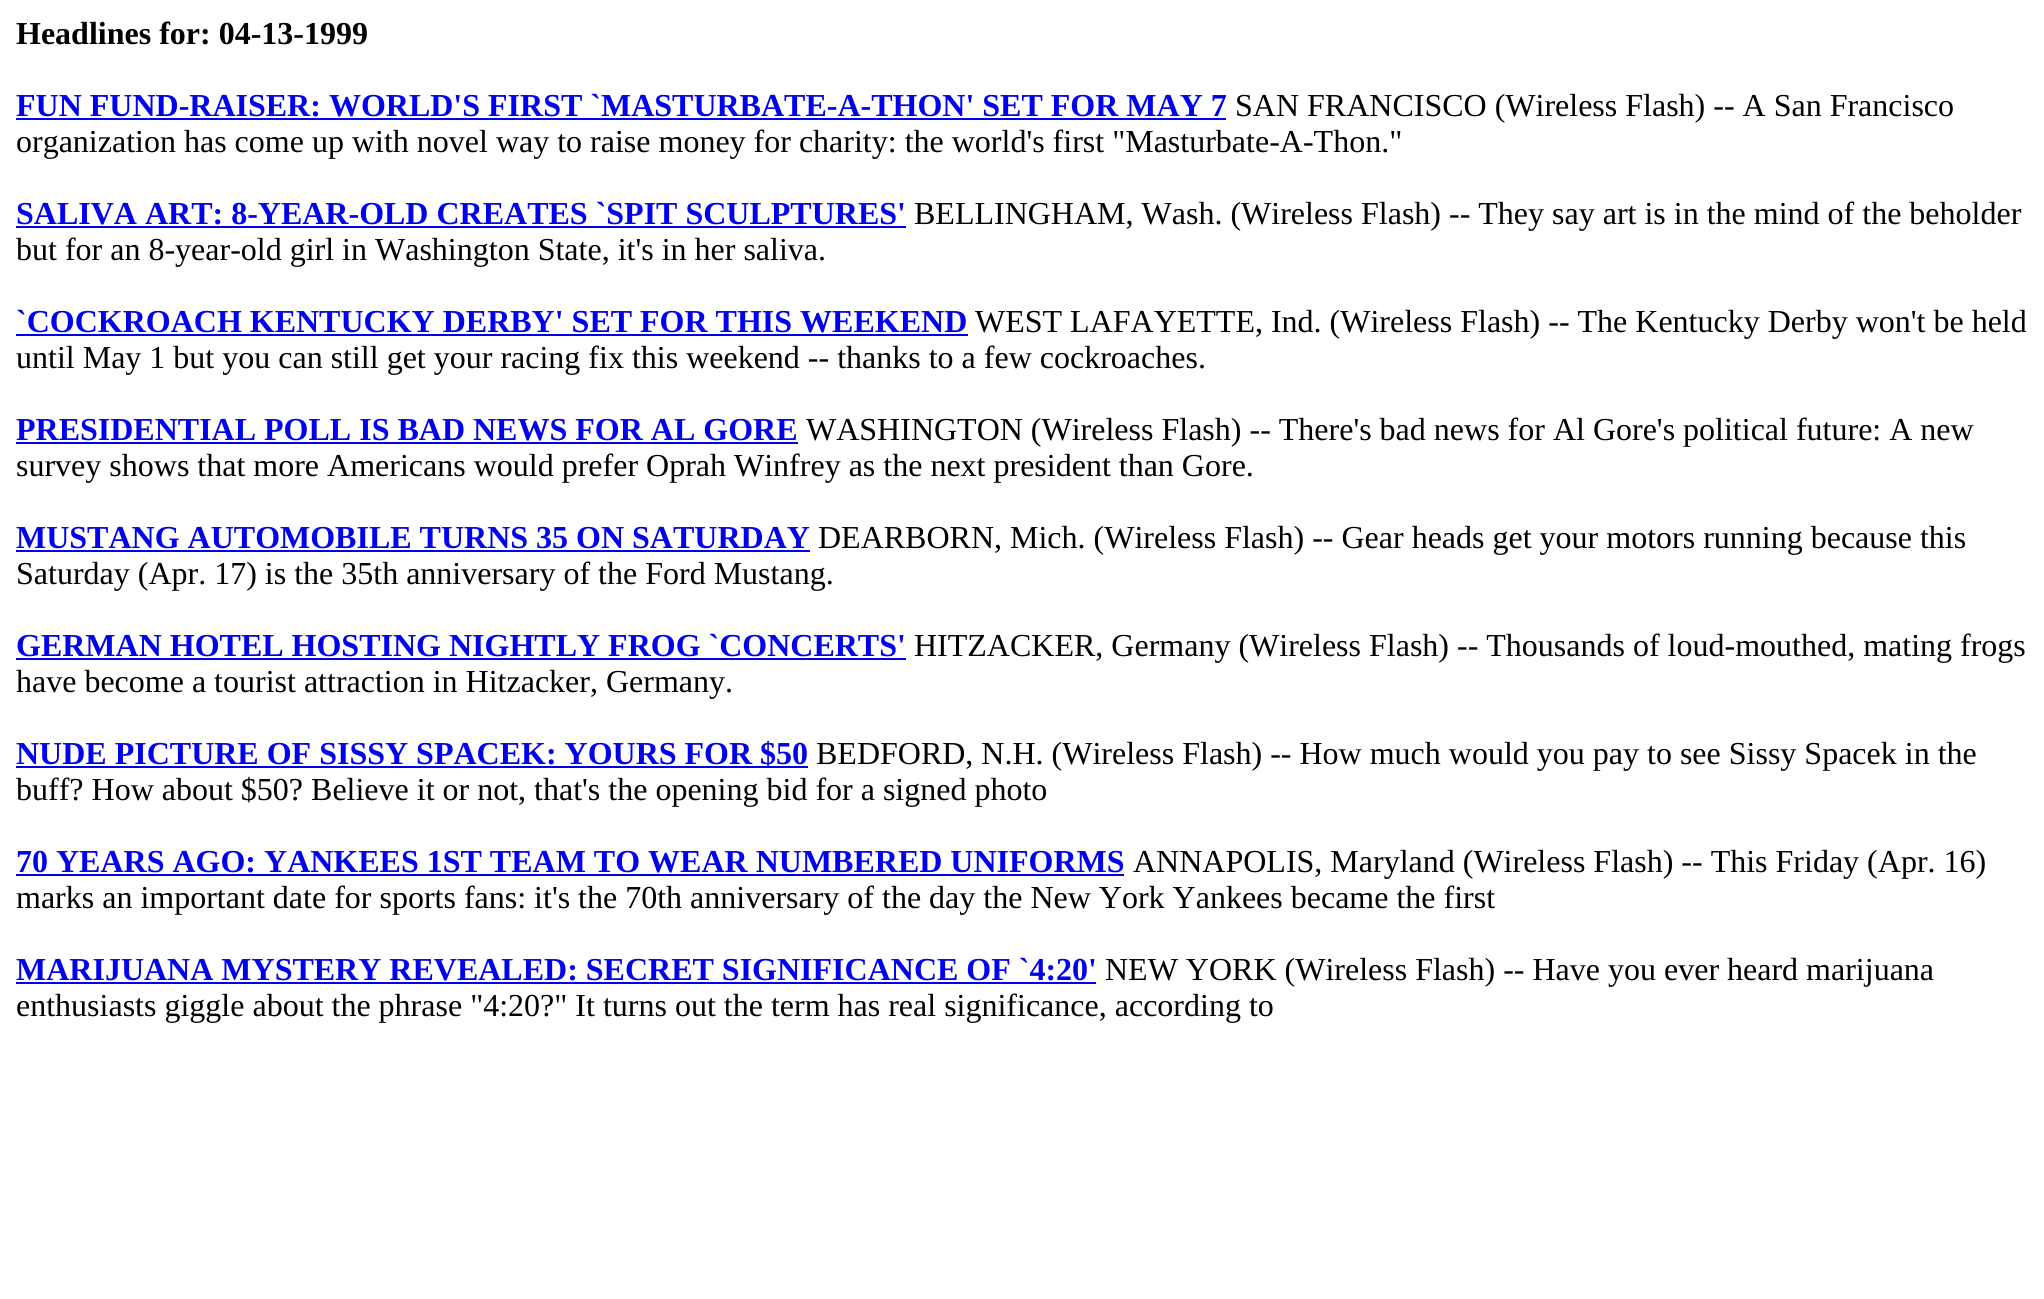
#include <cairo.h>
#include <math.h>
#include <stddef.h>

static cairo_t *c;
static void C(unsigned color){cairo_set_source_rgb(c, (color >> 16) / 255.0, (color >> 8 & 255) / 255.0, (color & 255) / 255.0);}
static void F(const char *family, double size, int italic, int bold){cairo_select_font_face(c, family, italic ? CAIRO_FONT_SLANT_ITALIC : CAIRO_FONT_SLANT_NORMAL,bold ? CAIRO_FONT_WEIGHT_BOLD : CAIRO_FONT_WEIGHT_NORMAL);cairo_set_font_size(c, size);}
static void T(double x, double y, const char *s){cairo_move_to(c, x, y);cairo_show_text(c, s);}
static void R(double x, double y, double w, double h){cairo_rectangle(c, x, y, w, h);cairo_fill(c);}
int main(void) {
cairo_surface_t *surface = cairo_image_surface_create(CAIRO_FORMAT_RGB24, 2044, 1299);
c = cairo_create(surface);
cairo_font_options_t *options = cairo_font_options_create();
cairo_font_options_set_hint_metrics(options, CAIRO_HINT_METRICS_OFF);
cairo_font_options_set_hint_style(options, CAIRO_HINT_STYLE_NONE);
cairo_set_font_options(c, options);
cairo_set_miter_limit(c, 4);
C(0xffffff);
cairo_paint(c);
F("Liberation Serif",32,0,1);
C(0x000000);
T(16,44,"Headlines for: 04-13-1999");
C(0x0000ee);
T(16,116,"FUN FUND-RAISER: WORLD'S FIRST `MASTURBATE-A-THON' SET FOR MAY 7");
R(16,118,1210,2);
F("Liberation Serif",32,0,0);
C(0x000000);
T(1235,116,"SAN FRANCISCO (Wireless Flash) -- A San Francisco");
T(16,152,"organization has come up with novel way to raise money for charity: the world's first \"Masturbate-A-Thon.\"");
F("Liberation Serif",32,0,1);
C(0x0000ee);
T(16,224,"SALIVA ART: 8-YEAR-OLD CREATES `SPIT SCULPTURES'");
R(16,226,890,2);
F("Liberation Serif",32,0,0);
C(0x000000);
T(914,224,"BELLINGHAM, Wash. (Wireless Flash) -- They say art is in the mind of the beholder");
T(16,260,"but for an 8-year-old girl in Washington State, it's in her saliva.");
F("Liberation Serif",32,0,1);
C(0x0000ee);
T(16,332,"`COCKROACH KENTUCKY DERBY' SET FOR THIS WEEKEND");
R(16,334,952,2);
F("Liberation Serif",32,0,0);
C(0x000000);
T(975,332,"WEST LAFAYETTE, Ind. (Wireless Flash) -- The Kentucky Derby won't be held");
T(16,368,"until May 1 but you can still get your racing fix this weekend -- thanks to a few cockroaches.");
F("Liberation Serif",32,0,1);
C(0x0000ee);
T(16,440,"PRESIDENTIAL POLL IS BAD NEWS FOR AL GORE");
R(16,442,782,2);
F("Liberation Serif",32,0,0);
C(0x000000);
T(806,440,"WASHINGTON (Wireless Flash) -- There's bad news for Al Gore's political future: A new");
T(16,476,"survey shows that more Americans would prefer Oprah Winfrey as the next president than Gore.");
F("Liberation Serif",32,0,1);
C(0x0000ee);
T(16,548,"MUSTANG AUTOMOBILE TURNS 35 ON SATURDAY");
R(16,550,794,2);
F("Liberation Serif",32,0,0);
C(0x000000);
T(818,548,"DEARBORN, Mich. (Wireless Flash) -- Gear heads get your motors running because this");
T(16,584,"Saturday (Apr. 17) is the 35th anniversary of the Ford Mustang.");
F("Liberation Serif",32,0,1);
C(0x0000ee);
T(16,656,"GERMAN HOTEL HOSTING NIGHTLY FROG `CONCERTS'");
R(16,658,890,2);
F("Liberation Serif",32,0,0);
C(0x000000);
T(914,656,"HITZACKER, Germany (Wireless Flash) -- Thousands of loud-mouthed, mating frogs");
T(16,692,"have become a tourist attraction in Hitzacker, Germany.");
C(0x0000ee);
R(16,766,792,2);
F("Liberation Serif",32,0,1);
T(16,764,"NUDE PICTURE OF SISSY SPACEK: YOURS FOR $50");
F("Liberation Serif",32,0,0);
C(0x000000);
T(816,764,"BEDFORD, N.H. (Wireless Flash) -- How much would you pay to see Sissy Spacek in the");
T(16,800,"buff? How about $50? Believe it or not, that's the opening bid for a signed photo");
F("Liberation Serif",32,0,1);
C(0x0000ee);
T(16,872,"70 YEARS AGO: YANKEES 1ST TEAM TO WEAR NUMBERED UNIFORMS");
R(16,874,1108,2);
F("Liberation Serif",32,0,0);
C(0x000000);
T(1133,872,"ANNAPOLIS, Maryland (Wireless Flash) -- This Friday (Apr. 16)");
T(16,908,"marks an important date for sports fans: it's the 70th anniversary of the day the New York Yankees became the first");
F("Liberation Serif",32,0,1);
C(0x0000ee);
T(16,980,"MARIJUANA MYSTERY REVEALED: SECRET SIGNIFICANCE OF `4:20'");
R(16,982,1080,2);
F("Liberation Serif",32,0,0);
C(0x000000);
T(1105,980,"NEW YORK (Wireless Flash) -- Have you ever heard marijuana");
T(16,1016,"enthusiasts giggle about the phrase \"4:20?\" It turns out the term has real significance, according to");
cairo_surface_write_to_png(surface, "o.png");
cairo_font_options_destroy(options);
cairo_destroy(c);
cairo_surface_destroy(surface);
return 0;
}
